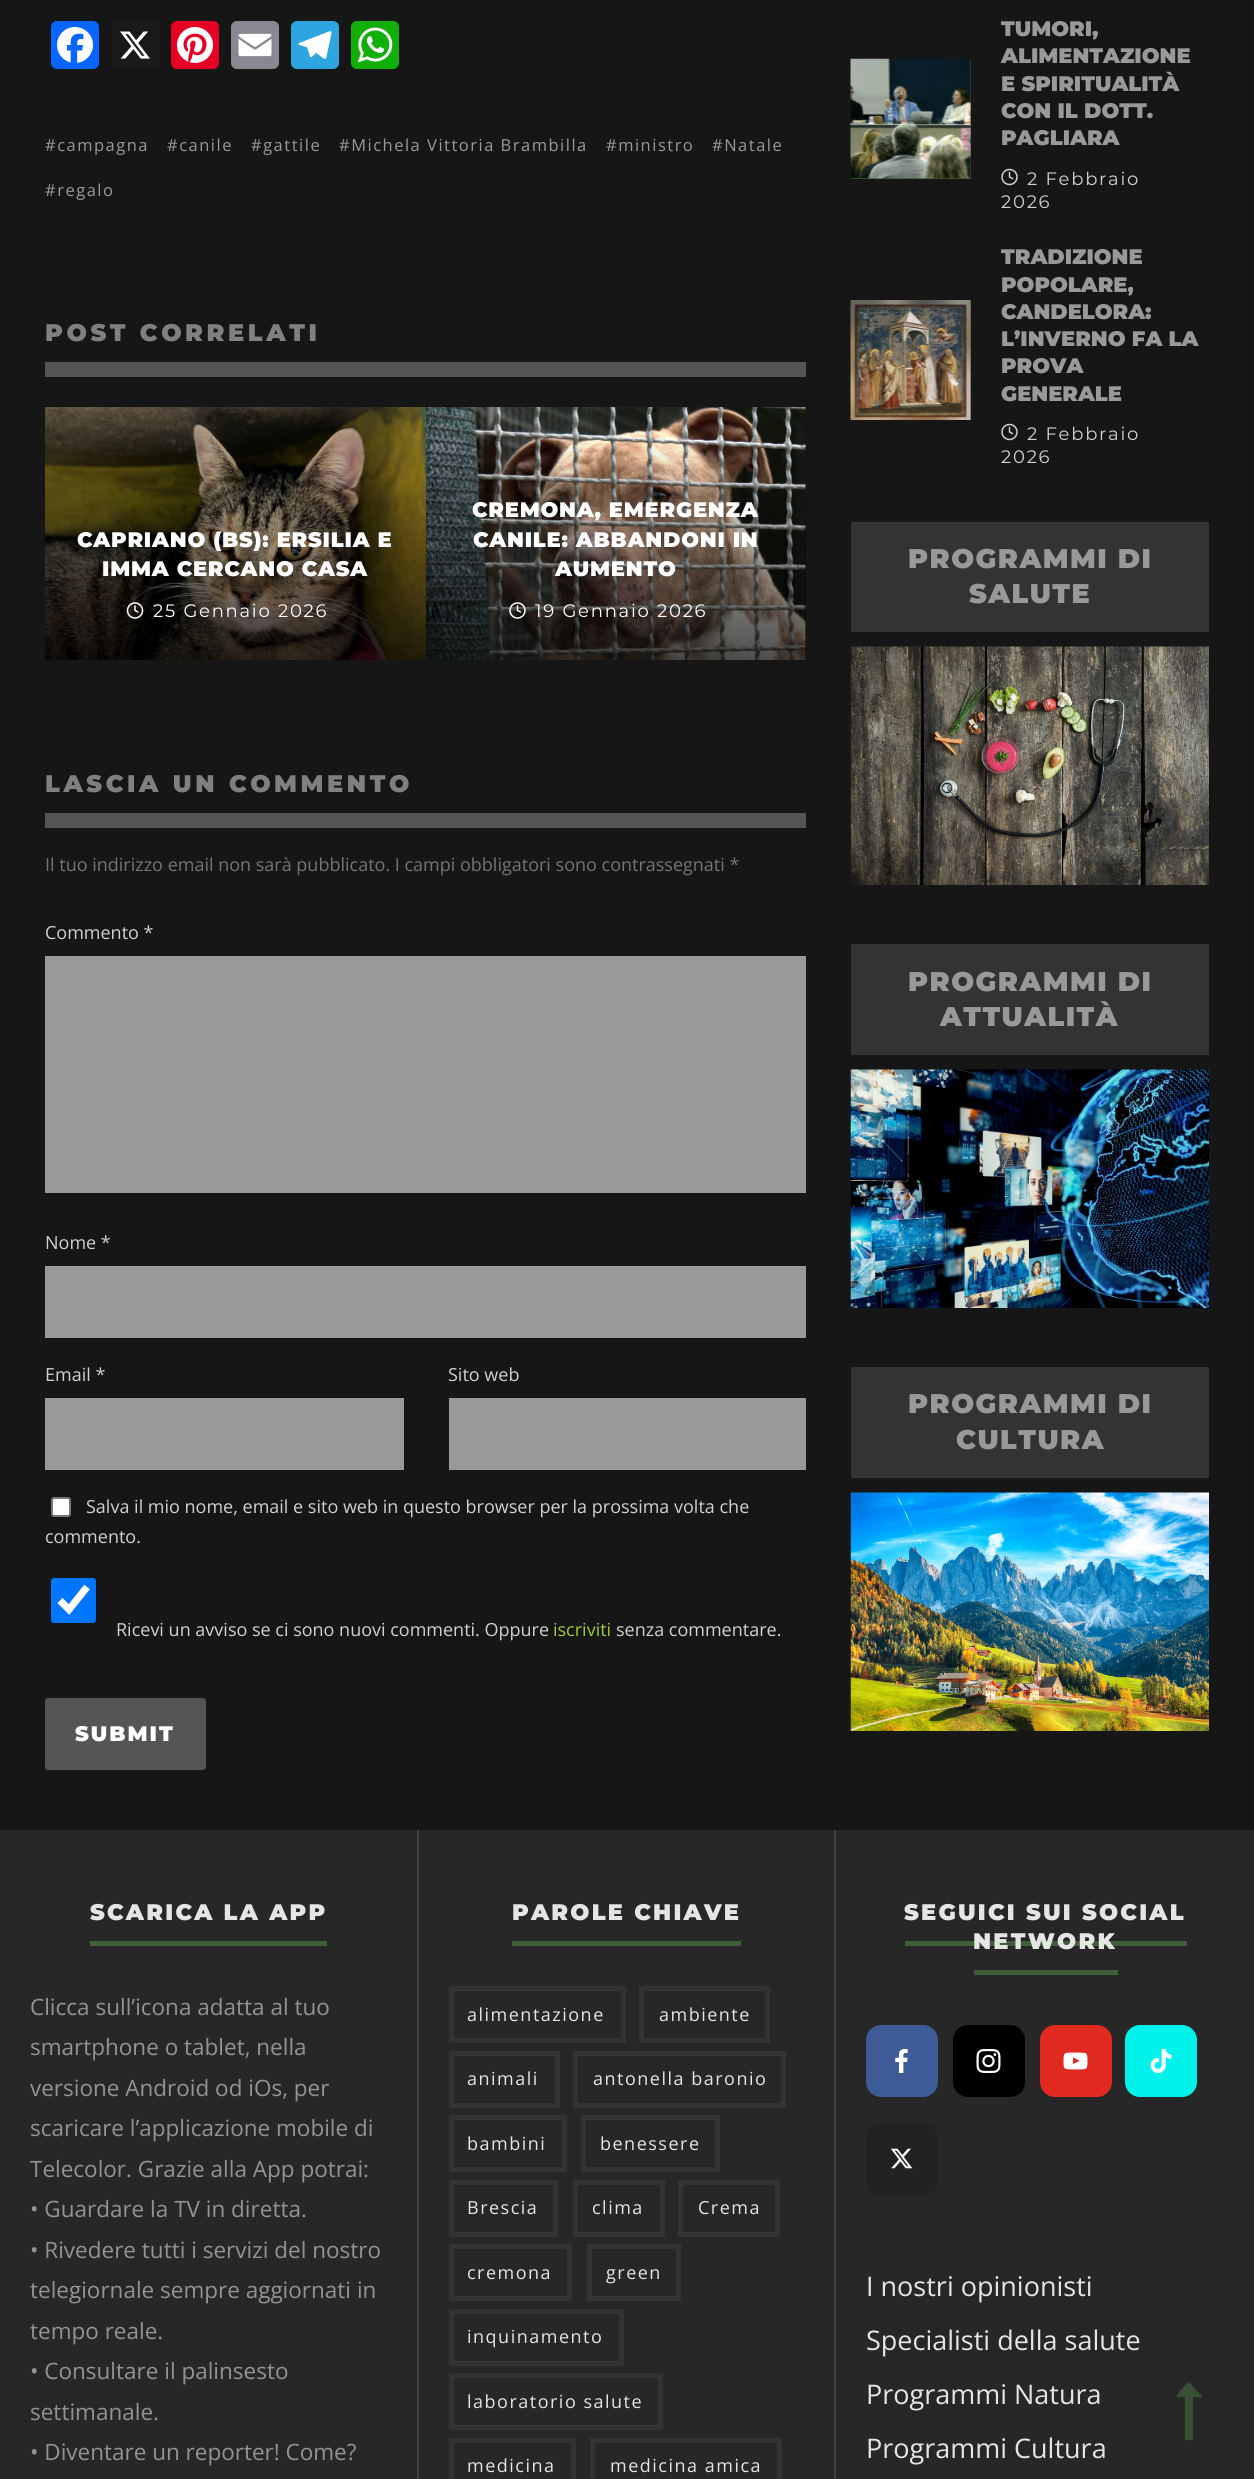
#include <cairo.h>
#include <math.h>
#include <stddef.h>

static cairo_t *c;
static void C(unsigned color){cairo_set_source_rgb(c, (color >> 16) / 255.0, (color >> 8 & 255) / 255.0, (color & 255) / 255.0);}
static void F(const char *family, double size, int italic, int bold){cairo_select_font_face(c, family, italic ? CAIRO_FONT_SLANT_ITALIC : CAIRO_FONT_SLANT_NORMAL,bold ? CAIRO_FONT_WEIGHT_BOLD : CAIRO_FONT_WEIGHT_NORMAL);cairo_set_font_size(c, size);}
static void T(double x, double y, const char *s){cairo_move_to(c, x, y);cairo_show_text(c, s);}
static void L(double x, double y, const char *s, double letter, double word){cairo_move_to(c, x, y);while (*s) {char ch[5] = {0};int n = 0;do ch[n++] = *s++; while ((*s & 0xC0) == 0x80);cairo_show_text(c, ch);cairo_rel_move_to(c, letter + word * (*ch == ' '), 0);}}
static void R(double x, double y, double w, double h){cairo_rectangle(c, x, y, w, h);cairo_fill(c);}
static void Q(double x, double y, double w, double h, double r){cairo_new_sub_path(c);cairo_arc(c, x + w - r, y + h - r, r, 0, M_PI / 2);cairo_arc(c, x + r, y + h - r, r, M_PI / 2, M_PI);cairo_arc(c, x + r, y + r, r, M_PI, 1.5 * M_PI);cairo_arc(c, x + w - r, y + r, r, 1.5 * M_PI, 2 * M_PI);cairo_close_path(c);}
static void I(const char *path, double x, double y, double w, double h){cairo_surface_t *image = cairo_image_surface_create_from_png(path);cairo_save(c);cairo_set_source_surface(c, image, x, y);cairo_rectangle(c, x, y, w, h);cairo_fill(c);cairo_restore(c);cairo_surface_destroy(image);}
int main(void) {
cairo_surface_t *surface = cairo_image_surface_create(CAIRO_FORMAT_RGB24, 1254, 2479);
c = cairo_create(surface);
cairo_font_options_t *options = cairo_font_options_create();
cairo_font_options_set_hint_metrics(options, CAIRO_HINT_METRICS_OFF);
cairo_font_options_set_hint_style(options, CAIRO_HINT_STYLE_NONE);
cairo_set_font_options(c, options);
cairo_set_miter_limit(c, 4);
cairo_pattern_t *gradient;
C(0x161616);
cairo_paint(c);
C(0x0866ff);
Q(51,21,48,48,6);
cairo_fill(c);
I("1.png",57,27,36,36);
C(0x1a1a1a);
Q(111,21,48,48,6);
cairo_fill(c);
I("2.png",120,31,30,28);
C(0xe60023);
Q(171,21,48,48,6);
cairo_fill(c);
I("3.png",177,27,36,36);
C(0x888990);
Q(231,21,48,48,6);
cairo_fill(c);
I("4.png",238,33,34,24);
C(0x2ca5e0);
Q(291,21,48,48,6);
cairo_fill(c);
I("5.png",298,31,34,28);
C(0x12af0a);
Q(351,21,48,48,6);
cairo_fill(c);
I("6.png",357,27,36,36);
F("Open Sans",16.5,0,0);
C(0x999999);
L(45,151,"#campagna",1.5,0);
L(167,151,"#canile",1.5,0);
L(251,151,"#gattile",1.5,0);
L(339,151,"#Michela Vittoria Brambilla",1.5,0);
L(606,151,"#ministro",1.5,0);
L(712,151,"#Natale",1.5,0);
L(45,196,"#regalo",1.5,0);
C(0x555555);
R(45,362,761,15);
F("Montserrat Black",24,0,0);
C(0x808080);
L(45,341,"POST CORRELATI",3.6,0);
I("7.png",45,407,381,253);
F("Montserrat Black",21,0,0);
C(0xffffff);
L(77,547,"CAPRIANO (BS): ERSILIA E",.8,0);
L(102,576,"IMMA CERCANO CASA",.8,0);
I("8.png",126,602,18,17);
F("Montserrat",18,0,0);
L(153,617,"25 Gennaio 2026",1.75,0);
C(0x0d0d0d);
R(426,407,380,253);
I("9.png",426,407,380,253);
gradient = cairo_pattern_create_linear(616,437,616,660);
cairo_pattern_add_color_stop_rgba(gradient,0,0,0,0,0);
cairo_pattern_add_color_stop_rgba(gradient,1,0,0,0,.65);
cairo_set_source(c,gradient);
cairo_pattern_destroy(gradient);
R(426,444,380,216);
gradient = cairo_pattern_create_linear(616,437,616,660);
cairo_pattern_add_color_stop_rgba(gradient,0,0,0,0,0);
cairo_pattern_add_color_stop_rgba(gradient,1,0,0,0,.13);
cairo_set_source(c,gradient);
cairo_pattern_destroy(gradient);
R(426,474,380,186);
F("Montserrat Black",21,0,0);
C(0xffffff);
L(472,517,"CREMONA, EMERGENZA",.8,0);
L(473,547,"CANILE: ABBANDONI IN",.8,0);
L(555,576,"AUMENTO",.8,0);
I("10.png",509,602,17,17);
F("Montserrat",18,0,0);
L(535,617,"19 Gennaio 2026",1.75,0);
C(0x555555);
R(45,813,761,15);
F("Montserrat Black",24,0,0);
C(0x808080);
L(45,792,"LASCIA UN COMMENTO",3.6,0);
F("Open Sans",18,0,0);
C(0x747474);
T(45,871,"Il tuo indirizzo email non sarà pubblicato. I campi obbligatori sono contrassegnati *");
C(0xd1d1d1);
T(45,939,"Commento *");
C(0x999999);
R(45,956,761,237);
C(0xd1d1d1);
T(45,1249,"Nome *");
C(0x999999);
R(45,1266,761,72);
C(0xd1d1d1);
T(45,1381,"Email *");
C(0x999999);
R(45,1398,359,72);
C(0xd1d1d1);
T(448,1381,"Sito web");
C(0x999999);
R(449,1398,357,72);
C(0xffffff);
Q(52,1498,18,18,2);
cairo_fill_preserve(c);
C(0x767676);
cairo_stroke(c);
C(0xd1d1d1);
T(86,1513,"Salva il mio nome, email e sito web in questo browser per la prossima volta che");
T(45,1543,"commento.");
C(0x0075ff);
Q(51,1578,45,45,3);
cairo_fill(c);
cairo_new_path(c);
cairo_move_to(c,60,1600.5);
cairo_line_to(c,69,1609.5);
cairo_line_to(c,87,1587);
C(0xffffff);
cairo_set_line_width(c,7.2);
cairo_stroke(c);
C(0xd1d1d1);
T(116,1636,"Ricevi un avviso se ci sono nuovi commenti. Oppure");
C(0x9acd32);
T(553,1636,"iscriviti");
C(0xd1d1d1);
T(616,1636,"senza commentare.");
C(0x555555);
Q(45,1698,161,72,3);
cairo_fill(c);
F("Montserrat Black",21,0,0);
C(0xffffff);
L(75,1741,"SUBMIT",2,0);
C(0x3f5e39);
R(851,59,120,120);
I("11.png",850,58,121,121);
C(0x999999);
T(1001,36,"TUMORI,");
T(1001,63,"ALIMENTAZIONE");
T(1001,91,"E SPIRITUALITÀ");
T(1001,118,"CON IL DOTT.");
T(1001,145,"PAGLIARA");
I("12.png",1001,168,17,18);
F("Montserrat",18,0,0);
C(0xd1d1d1);
L(1027,185,"2 Febbraio",1.75,0);
L(1001,208,"2026",1.75,0);
C(0x3f5e39);
R(970,300,1,120);
I("13.png",850,300,121,120);
F("Montserrat Black",21,0,0);
C(0x999999);
T(1001,264,"TRADIZIONE");
T(1001,292,"POPOLARE,");
T(1001,319,"CANDELORA:");
T(1001,346,"L’INVERNO FA LA");
T(1001,373,"PROVA");
T(1001,401,"GENERALE");
I("12.png",1001,423,17,18);
F("Montserrat",18,0,0);
C(0xd1d1d1);
L(1027,440,"2 Febbraio",1.75,0);
L(1001,463,"2026",1.75,0);
C(0x333333);
R(851,522,358,110);
F("Montserrat Black",27,0,0);
C(0x999999);
L(908,568,"PROGRAMMI DI",1.5,0);
L(969,603,"SALUTE",1.5,0);
I("14.png",850,646,359,239);
C(0x333333);
R(851,944,358,111);
C(0x999999);
L(908,991,"PROGRAMMI DI",1.5,0);
L(940,1026,"ATTUALITÀ",1.5,0);
I("15.png",850,1069,359,239);
C(0x333333);
R(851,1367,358,111);
C(0x999999);
L(908,1413,"PROGRAMMI DI",1.5,0);
L(956,1449,"CULTURA",1.5,0);
I("16.png",850,1492,359,239);
C(0x272727);
R(0,1830,1254,649);
C(0x424242);
R(417,1830,2,649);
F("Montserrat Black",22.5,0,0);
C(0xe5e5e5);
L(90,1920,"SCARICA LA APP",2.25,0);
C(0x3f5e39);
R(90,1941,237,5);
F("Open Sans",22.5,0,0);
C(0x939393);
T(30,2015,"Clicca sull’icona adatta al tuo");
T(30,2055,"smartphone o tablet, nella");
T(30,2096,"versione Android od iOs, per");
T(30,2136,"scaricare l’applicazione mobile di");
T(30,2177,"Telecolor. Grazie alla App potrai:");
T(30,2217,"• Guardare la TV in diretta.");
T(30,2258,"• Rivedere tutti i servizi del nostro");
T(30,2298,"telegiornale sempre aggiornati in");
T(30,2339,"tempo reale.");
T(30,2379,"• Consultare il palinsesto");
T(30,2420,"settimanale.");
T(30,2460,"• Diventare un reporter! Come?");
C(0x424242);
R(834,1830,2,649);
F("Montserrat Black",22.5,0,0);
C(0xe5e5e5);
L(512,1920,"PAROLE CHIAVE",2.25,0);
C(0x3f5e39);
R(512,1941,229,5);
cairo_rectangle(c,451.5,1988.5,172,52);
C(0x333333);
cairo_set_line_width(c,5);
cairo_stroke(c);
F("Open Sans",18,0,0);
C(0xe5e5e5);
L(467,2021,"alimentazione",1.5,0);
cairo_rectangle(c,641.5,1988.5,126,52);
C(0x333333);
cairo_stroke(c);
C(0xe5e5e5);
L(659,2021,"ambiente",1.5,0);
cairo_rectangle(c,451.5,2053.5,106,52);
C(0x333333);
cairo_stroke(c);
C(0xe5e5e5);
L(467,2085,"animali",1.5,0);
cairo_rectangle(c,575.5,2053.5,208,52);
C(0x333333);
cairo_stroke(c);
C(0xe5e5e5);
L(593,2085,"antonella baronio",1.5,0);
cairo_rectangle(c,451.5,2117.5,113,52);
C(0x333333);
cairo_stroke(c);
C(0xe5e5e5);
L(467,2150,"bambini",1.5,0);
cairo_rectangle(c,583.5,2117.5,134,52);
C(0x333333);
cairo_stroke(c);
C(0xe5e5e5);
L(600,2150,"benessere",1.5,0);
cairo_rectangle(c,451.5,2182.5,104,52);
C(0x333333);
cairo_stroke(c);
C(0xe5e5e5);
L(467,2214,"Brescia",1.5,0);
cairo_rectangle(c,575.5,2182.5,87,52);
C(0x333333);
cairo_stroke(c);
C(0xe5e5e5);
L(592,2214,"clima",1.5,0);
cairo_rectangle(c,680.5,2182.5,97,52);
C(0x333333);
cairo_stroke(c);
C(0xe5e5e5);
L(698,2214,"Crema",1.5,0);
cairo_rectangle(c,451.5,2246.5,118,52);
C(0x333333);
cairo_stroke(c);
C(0xe5e5e5);
L(467,2279,"cremona",1.5,0);
cairo_rectangle(c,589.5,2246.5,89,52);
C(0x333333);
cairo_stroke(c);
C(0xe5e5e5);
L(606,2279,"green",1.5,0);
cairo_rectangle(c,451.5,2311.5,170,52);
C(0x333333);
cairo_stroke(c);
C(0xe5e5e5);
L(467,2343,"inquinamento",1.5,0);
cairo_rectangle(c,451.5,2375.5,209,52);
C(0x333333);
cairo_stroke(c);
C(0xe5e5e5);
L(467,2408,"laboratorio salute",1.5,0);
cairo_rectangle(c,451.5,2440.5,122,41);
C(0x333333);
cairo_stroke(c);
C(0xe5e5e5);
L(467,2472,"medicina",1.5,0);
cairo_rectangle(c,592.5,2440.5,187,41);
C(0x333333);
cairo_stroke(c);
C(0xe5e5e5);
L(610,2472,"medicina amica",1.5,0);
F("Montserrat Black",22.5,0,0);
L(904,1920,"SEGUICI SUI SOCIAL",2.25,0);
C(0x3f5e39);
R(905,1941,282,5);
C(0xe5e5e5);
L(973,1949,"NETWORK",2.25,0);
C(0x3f5e39);
R(974,1970,144,5);
C(0x3e5b98);
Q(866,2025,72,72,15);
cairo_fill(c);
I("17.png",895,2049,13,24);
C(0x000000);
Q(953,2025,72,72,15);
cairo_fill(c);
I("18.png",976,2049,25,24);
C(0xe02a20);
Q(1040,2025,72,72,15);
cairo_fill(c);
I("19.png",1063,2052,25,18);
C(0x00f2ea);
Q(1125,2025,72,72,15);
cairo_fill(c);
I("20.png",1150,2049,22,24);
C(0x222222);
Q(866,2123,72,72,15);
cairo_fill(c);
I("21.png",890,2148,23,21);
F("Open Sans",27,0,0);
C(0xe5e5e5);
T(866,2296,"I nostri opinionisti");
T(866,2350,"Specialisti della salute");
T(866,2404,"Programmi Natura");
T(866,2458,"Programmi Cultura");
C(0x395035);
cairo_new_path(c);
cairo_move_to(c,1202,2397);
cairo_curve_to(c,1201,2398,1195,2397,1193,2397);
cairo_line_to(c,1193,2439);
cairo_curve_to(c,1193,2441,1188,2440,1187,2440);
cairo_curve_to(c,1183,2440,1185,2438,1185,2432);
cairo_line_to(c,1185,2397);
cairo_curve_to(c,1175,2397,1174,2399,1180,2391);
cairo_curve_to(c,1191,2379,1187,2380,1197,2391);
cairo_curve_to(c,1198,2392,1202,2395,1202,2397);
cairo_close_path(c);
cairo_fill(c);
cairo_surface_write_to_png(surface, "o.png");
cairo_font_options_destroy(options);
cairo_destroy(c);
cairo_surface_destroy(surface);
return 0;
}
